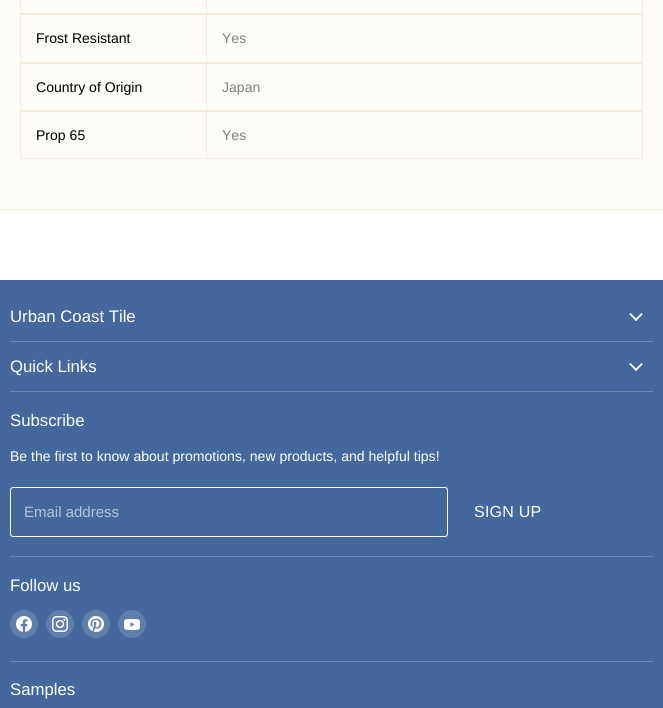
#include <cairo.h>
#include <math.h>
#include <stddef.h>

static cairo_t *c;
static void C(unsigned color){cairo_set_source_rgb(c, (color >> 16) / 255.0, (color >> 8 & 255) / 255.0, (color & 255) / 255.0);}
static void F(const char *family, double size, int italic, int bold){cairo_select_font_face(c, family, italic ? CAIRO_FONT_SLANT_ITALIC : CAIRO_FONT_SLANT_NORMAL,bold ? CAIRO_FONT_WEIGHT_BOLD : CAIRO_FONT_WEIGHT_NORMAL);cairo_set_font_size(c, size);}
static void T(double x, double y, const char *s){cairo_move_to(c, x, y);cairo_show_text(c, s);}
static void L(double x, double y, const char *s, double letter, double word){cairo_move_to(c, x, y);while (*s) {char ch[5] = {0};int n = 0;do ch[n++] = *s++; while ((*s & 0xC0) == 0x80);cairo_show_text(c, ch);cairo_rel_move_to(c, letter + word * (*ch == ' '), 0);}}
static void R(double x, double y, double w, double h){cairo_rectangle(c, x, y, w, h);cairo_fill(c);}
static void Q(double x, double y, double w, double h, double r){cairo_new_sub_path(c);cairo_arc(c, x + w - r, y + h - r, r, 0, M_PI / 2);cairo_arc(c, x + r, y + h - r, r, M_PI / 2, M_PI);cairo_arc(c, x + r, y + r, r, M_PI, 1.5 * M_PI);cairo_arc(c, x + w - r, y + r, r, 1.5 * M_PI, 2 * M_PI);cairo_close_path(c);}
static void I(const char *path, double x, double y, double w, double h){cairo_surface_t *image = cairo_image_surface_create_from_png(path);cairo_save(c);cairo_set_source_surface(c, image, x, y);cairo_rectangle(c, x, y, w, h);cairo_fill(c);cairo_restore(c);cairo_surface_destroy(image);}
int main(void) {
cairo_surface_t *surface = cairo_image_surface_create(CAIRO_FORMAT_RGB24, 663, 708);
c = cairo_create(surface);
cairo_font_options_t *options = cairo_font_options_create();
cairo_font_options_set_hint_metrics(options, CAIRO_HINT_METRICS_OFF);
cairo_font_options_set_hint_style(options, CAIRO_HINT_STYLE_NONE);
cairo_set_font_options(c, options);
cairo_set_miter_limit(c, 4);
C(0xffffff);
cairo_paint(c);
C(0xfdfbf8);
R(0,0,663,209);
C(0xf4eade);
R(0,209,663,1);
cairo_rectangle(c,20.5,-.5,186,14);
cairo_set_line_width(c,1);
cairo_stroke(c);
R(642,0,1,14);
R(207,13,436,2);
cairo_rectangle(c,20.5,14.5,186,48);
cairo_stroke(c);
F("Liberation Sans",14.05,0,0);
C(0x000000);
T(36,43,"Frost Resistant");
C(0xf4eade);
R(642,14,1,49);
R(207,62,436,2);
C(0x808080);
T(222,43,"Yes");
cairo_rectangle(c,20.5,63.5,186,47);
C(0xf4eade);
cairo_stroke(c);
C(0x000000);
T(36,92,"Country of Origin");
C(0xf4eade);
R(642,63,1,48);
R(207,110,436,2);
C(0x808080);
T(222,92,"Japan");
cairo_rectangle(c,20.5,111.5,186,47);
C(0xf4eade);
cairo_stroke(c);
C(0x000000);
T(36,140,"Prop 65");
C(0xf4eade);
R(642,111,1,48);
R(207,158,436,1);
C(0x808080);
T(222,140,"Yes");
C(0x44689b);
R(0,280,663,428);
C(0x6986af);
R(10,341,643,1);
F("Liberation Sans",16.75,0,0);
C(0xffffff);
T(10,322,"Urban Coast Tile");
I("1.png",629,313,14,8);
C(0x6986af);
R(10,391,643,1);
C(0xffffff);
T(10,372,"Quick Links");
I("1.png",629,363,14,8);
C(0x6986af);
R(10,556,643,1);
C(0xffffff);
T(10,426,"Subscribe");
F("Liberation Sans",14.05,0,0);
T(10,461,"Be the first to know about promotions, new products, and helpful tips!");
Q(10.5,487.5,437,49,2.5);
cairo_stroke(c);
F("Liberation Sans",15,0,0);
C(0xb4c3d7);
T(24,517,"Email address");
F("Liberation Sans",16,0,0);
C(0xffffff);
L(474,517,"SIGN UP",.25,0);
C(0x6986af);
R(10,661,643,1);
F("Liberation Sans",16.75,0,0);
C(0xffffff);
T(10,591,"Follow us");
C(0x607faa);
cairo_new_path(c);
cairo_arc(c,24,624,14,0,2 * M_PI);
cairo_fill(c);
I("2.png",16,616,16,16);
cairo_arc(c,60,624,14,0,2 * M_PI);
cairo_fill(c);
I("3.png",52,616,16,16);
cairo_arc(c,96,624,14,0,2 * M_PI);
cairo_fill(c);
I("4.png",88,616,16,16);
cairo_arc(c,132,624,14,0,2 * M_PI);
cairo_fill(c);
I("5.png",124,619,16,11);
C(0xffffff);
T(10,695,"Samples");
cairo_surface_write_to_png(surface, "o.png");
cairo_font_options_destroy(options);
cairo_destroy(c);
cairo_surface_destroy(surface);
return 0;
}
